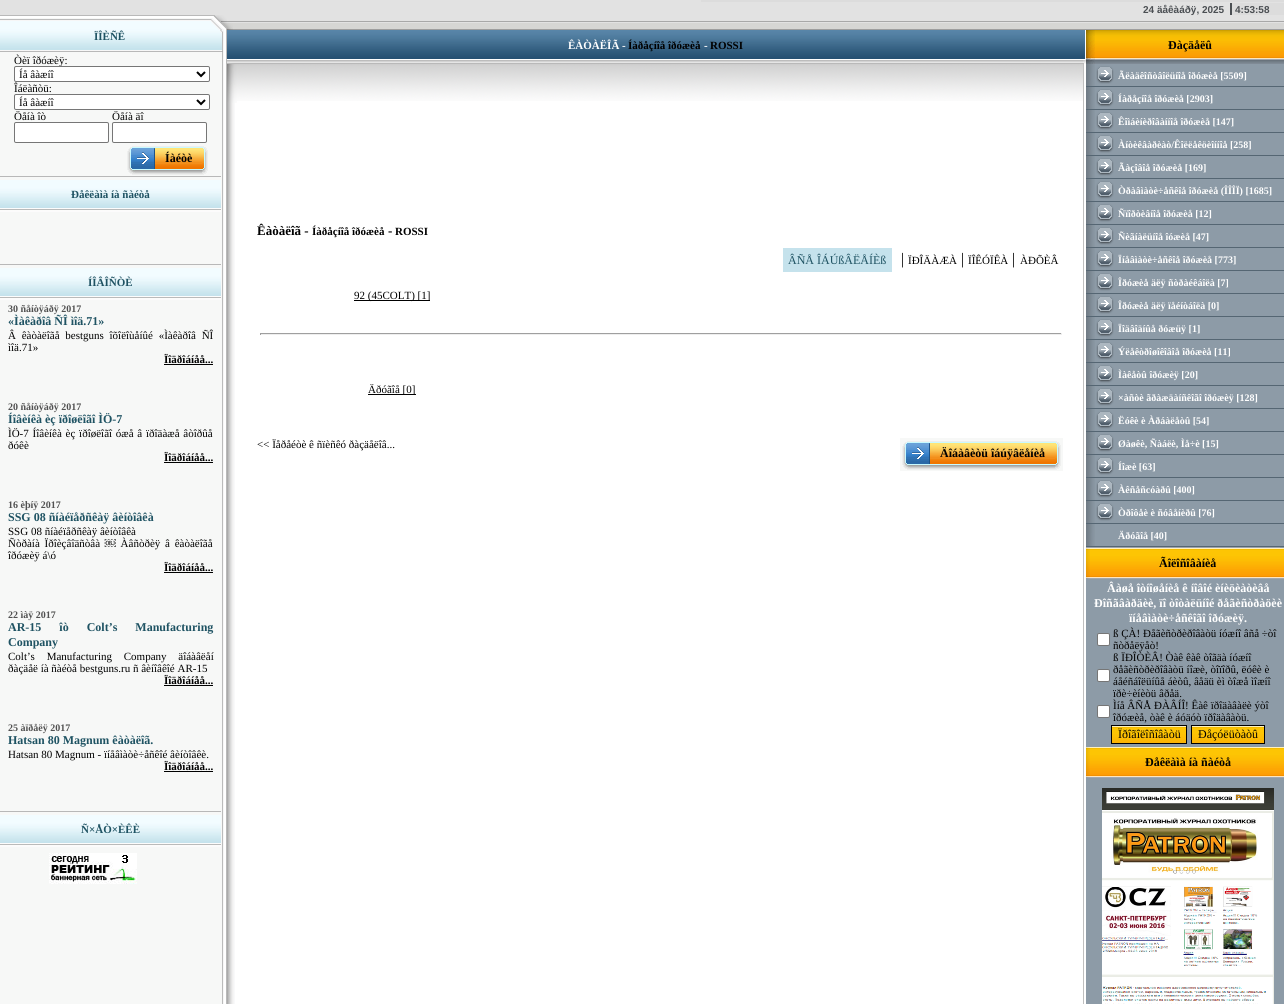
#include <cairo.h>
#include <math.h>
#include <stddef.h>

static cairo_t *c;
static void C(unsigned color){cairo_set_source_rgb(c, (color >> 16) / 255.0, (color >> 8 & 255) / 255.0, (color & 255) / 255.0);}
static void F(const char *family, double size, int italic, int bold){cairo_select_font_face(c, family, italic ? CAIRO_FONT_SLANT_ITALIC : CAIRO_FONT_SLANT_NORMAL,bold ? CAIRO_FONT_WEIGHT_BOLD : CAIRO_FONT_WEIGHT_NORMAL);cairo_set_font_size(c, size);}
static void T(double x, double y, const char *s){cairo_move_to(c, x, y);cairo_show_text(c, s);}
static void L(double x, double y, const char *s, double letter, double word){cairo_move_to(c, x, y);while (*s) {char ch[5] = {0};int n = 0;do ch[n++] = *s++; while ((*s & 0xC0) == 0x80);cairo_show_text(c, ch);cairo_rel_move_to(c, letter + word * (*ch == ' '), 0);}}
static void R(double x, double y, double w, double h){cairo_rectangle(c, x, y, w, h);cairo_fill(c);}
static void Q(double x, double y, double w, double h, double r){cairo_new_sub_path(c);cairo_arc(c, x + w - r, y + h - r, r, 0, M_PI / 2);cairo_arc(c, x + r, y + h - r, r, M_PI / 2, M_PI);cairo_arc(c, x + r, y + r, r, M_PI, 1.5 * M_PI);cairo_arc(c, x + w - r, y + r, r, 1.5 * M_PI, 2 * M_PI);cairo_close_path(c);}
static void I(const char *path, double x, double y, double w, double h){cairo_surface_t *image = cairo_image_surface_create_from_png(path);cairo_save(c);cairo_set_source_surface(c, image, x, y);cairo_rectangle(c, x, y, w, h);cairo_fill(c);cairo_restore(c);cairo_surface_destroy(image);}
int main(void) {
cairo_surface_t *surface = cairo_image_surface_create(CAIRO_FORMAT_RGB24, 1284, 1004);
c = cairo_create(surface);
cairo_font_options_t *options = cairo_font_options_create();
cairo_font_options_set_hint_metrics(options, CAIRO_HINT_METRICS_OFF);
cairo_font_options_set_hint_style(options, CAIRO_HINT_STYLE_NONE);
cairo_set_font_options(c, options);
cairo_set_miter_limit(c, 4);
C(0xffffff);
cairo_paint(c);
C(0xe2e2e2);
R(0,0,1284,3);
C(0xdcdcdc);
R(701,0,583,2);
R(1232,3,52,12);
C(0xe2e2e2);
R(0,3,1230,12);
I("3.png",227,15,1057,15);
F("Liberation Sans",10,0,1);
C(0x4b4f53);
T(1143,13,"24 äåêàáðÿ, 2025");
R(1230,3,2,12);
T(1235,13,"4:53:58");
I("1.png",0,15,211,15);
I("2.png",211,15,16,15);
I("4.png",227,22,6,8);
C(0xf7f8f7);
R(0,52,222,952);
I("5.png",0,30,220,22);
F("Liberation Serif",11,0,1);
C(0x1f5363);
T(94,40,"ÏÎÈÑÊ");
I("6.png",220,30,7,24);
F("Liberation Serif",11,0,0);
C(0x000000);
T(14,64,"Òèï îðóæèÿ:");
C(0xffffff);
Q(14.5,66.5,195,15,1.5);
cairo_fill_preserve(c);
C(0x767676);
cairo_set_line_width(c,1);
cairo_stroke(c);
cairo_new_path(c);
cairo_move_to(c,197,72);
cairo_line_to(c,201,76);
cairo_line_to(c,205,72);
C(0x000000);
cairo_set_line_width(c,2);
cairo_stroke(c);
T(19,78,"Íå âàæíî");
T(14,92,"Îáëàñòü:");
C(0xffffff);
Q(14.5,94.5,195,15,1.5);
cairo_fill_preserve(c);
C(0x767676);
cairo_set_line_width(c,1);
cairo_stroke(c);
cairo_new_path(c);
cairo_move_to(c,197,100);
cairo_line_to(c,201,104);
cairo_line_to(c,205,100);
C(0x000000);
cairo_set_line_width(c,2);
cairo_stroke(c);
T(19,106,"Íå âàæíî");
T(14,120,"Öåíà îò");
C(0xffffff);
Q(14.5,122.5,94,20,1.5);
cairo_fill_preserve(c);
C(0x767676);
cairo_set_line_width(c,1);
cairo_stroke(c);
C(0x000000);
T(112,120,"Öåíà äî");
C(0xffffff);
Q(112.5,122.5,94,20,1.5);
cairo_fill_preserve(c);
C(0x767676);
cairo_stroke(c);
I("7.png",127,146,28,29);
I("8.png",155,146,47,29);
F("Liberation Serif",12,0,1);
C(0x000000);
T(165,162,"Íàéòè");
I("9.png",202,146,6,29);
I("10.png",0,176,221,36);
F("Liberation Serif",11,0,1);
C(0x1f5363);
T(71,198,"Ðåêëàìà íà ñàéòå");
I("10.png",0,264,221,36);
T(88,286,"ÍÎÂÎÑÒÈ");
F("Liberation Serif",10,0,1);
C(0x515151);
T(8,312,"30 ñåíòÿáðÿ 2017");
F("Liberation Serif",12,0,1);
C(0x1f5363);
T(8,325,"«Ìàêàðîâ ÑÎ ìîä.71»");
F("Liberation Serif",11,0,0);
C(0x000000);
L(8,339,"Â êàòàëîãå bestguns îõîëîùåíûé «Ìàêàðîâ ÑÎ",0,3);
T(8,351,"ìîä.71»");
F("Liberation Serif",11,0,1);
T(164,363,"Ïîäðîáíåå...");
R(164,364,49,1);
F("Liberation Serif",10,0,1);
C(0x515151);
T(8,410,"20 ñåíòÿáðÿ 2017");
F("Liberation Serif",12,0,1);
C(0x1f5363);
T(8,423,"Íîâèíêà èç ïðîøëîãî ÌÖ-7");
F("Liberation Serif",11,0,0);
C(0x000000);
L(8,437,"ÌÖ-7 Íîâèíêà èç ïðîøëîãî óæå â ïðîäàæå âòîðûå",0,1);
T(8,449,"ðóêè");
F("Liberation Serif",11,0,1);
T(164,461,"Ïîäðîáíåå...");
R(164,462,49,1);
F("Liberation Serif",10,0,1);
C(0x515151);
T(8,508,"16 èþíÿ 2017");
F("Liberation Serif",12,0,1);
C(0x1f5363);
T(8,521,"SSG 08 ñíàéïåðñêàÿ âèíòîâêà");
F("Liberation Serif",11,0,0);
C(0x000000);
T(8,535,"SSG 08 ñíàéïåðñêàÿ âèíòîâêà");
L(8,547,"Ñòðàíà Ïðîèçâîäñòâà ￼ Àâñòðèÿ â êàòàëîãå",0,2);
T(8,559,"îðóæèÿ á\\ó");
F("Liberation Serif",11,0,1);
T(164,571,"Ïîäðîáíåå...");
R(164,572,49,1);
F("Liberation Serif",10,0,1);
C(0x515151);
T(8,618,"22 ìàÿ 2017");
F("Liberation Serif",12,0,1);
C(0x1f5363);
L(8,631,"AR-15 îò Colt’s Manufacturing",0,15);
T(8,646,"Company");
F("Liberation Serif",11,0,0);
C(0x000000);
L(8,660,"Colt’s Manufacturing Company äîáàâëåí",0,9);
T(8,672,"ðàçäåë íà ñàéòå bestguns.ru ñ âèíîâêîé AR-15");
F("Liberation Serif",11,0,1);
T(164,684,"Ïîäðîáíåå...");
R(164,685,49,1);
F("Liberation Serif",10,0,1);
C(0x515151);
T(8,731,"25 àïðåëÿ 2017");
F("Liberation Serif",12,0,1);
C(0x1f5363);
T(8,744,"Hatsan 80 Magnum êàòàëîã.");
F("Liberation Serif",11,0,0);
C(0x000000);
T(8,758,"Hatsan 80 Magnum - ïíåâìàòè÷åñêîé âèíòîâêè.");
F("Liberation Serif",11,0,1);
T(164,770,"Ïîäðîáíåå...");
R(164,771,49,1);
I("10.png",0,811,221,36);
C(0x1f5363);
T(81,833,"Ñ×ÅÒ×ÈÊÈ");
I("11.png",49,853,88,31);
I("12.png",222,54,5,950);
I("13.png",227,30,1,34);
I("14.png",228,30,855,34);
C(0xffffff);
T(568,49,"ÊÀÒÀËÎÃ -");
C(0x000000);
T(628,49,"Íàðåçíîå îðóæèå");
C(0xffffff);
T(704,49,"-");
C(0x000000);
T(710,49,"ROSSI");
I("15.png",227,103,8,901);
I("16.png",227,64,10,39);
I("17.png",237,64,846,37);
F("Liberation Serif",13,0,1);
T(257,235,"Êàòàëîã -");
F("Liberation Serif",11,0,1);
T(312,235,"Íàðåçíîå îðóæèå");
F("Liberation Serif",13,0,1);
T(388,235,"-");
F("Liberation Serif",11,0,1);
T(395,235,"ROSSI");
C(0xc5e2ec);
R(783,248,109,24);
F("Liberation Serif",12,0,0);
C(0x1f5363);
T(788,264,"ÂÑÅ ÎÁÚßÂËÅÍÈß");
F("Liberation Serif",16,0,0);
C(0x000000);
T(901,264,"|");
F("Liberation Serif",11,0,0);
T(908,264,"ÏÐÎÄÀÆÀ");
F("Liberation Serif",16,0,0);
T(961,264,"|");
F("Liberation Serif",11,0,0);
T(968,264,"ÏÎÊÓÏÊÀ");
F("Liberation Serif",16,0,0);
T(1012,264,"|");
F("Liberation Serif",11,0,0);
T(1020,264,"ÀÐÕÈÂ");
R(354,300,76,1);
T(354,299,"92 (45COLT) [1]");
C(0x9f9f9f);
R(260,333,802,1);
C(0xeeeeee);
R(1061,333,1,2);
R(260,334,802,1);
C(0x9f9f9f);
R(260,333,1,2);
C(0x000000);
R(368,394,48,1);
T(368,393,"Äðóãîå [0]");
T(257,448,"<< Ïåðåéòè ê ñïèñêó ðàçäåëîâ...");
I("18.png",900,438,30,33);
I("19.png",930,438,125,33);
F("Liberation Serif",12,0,1);
T(940,457,"Äîáàâèòü îáúÿâëåíèå");
I("20.png",1055,438,8,33);
I("21.png",1083,30,3,34);
I("22.png",1086,30,9,34);
I("23.png",1095,30,189,34);
T(1168,49,"Ðàçäåëû");
C(0xbfbfbf);
R(1083,64,1,940);
C(0x8d9ba7);
R(1086,64,198,940);
I("24.png",1086,64,9,22);
I("25.png",1096,66,18,18);
F("Liberation Serif",10,0,1);
C(0xffffff);
T(1118,79,"Ãëàäêîñòâîëüíîå îðóæèå [5509]");
C(0x556673);
R(1086,86,198,1);
I("24.png",1086,87,9,22);
I("25.png",1096,89,18,18);
C(0xffffff);
T(1118,102,"Íàðåçíîå îðóæèå [2903]");
C(0x556673);
R(1086,109,198,1);
I("24.png",1086,110,9,22);
I("25.png",1096,112,18,18);
C(0xffffff);
T(1118,125,"Êîìáèíèðîâàííîå îðóæèå [147]");
C(0x556673);
R(1086,132,198,1);
I("24.png",1086,133,9,22);
I("25.png",1096,135,18,18);
C(0xffffff);
T(1118,148,"Àíòèêâàðèàò/Êîëëåêöèîííîå [258]");
C(0x556673);
R(1086,155,198,1);
I("24.png",1086,156,9,22);
I("25.png",1096,158,18,18);
C(0xffffff);
T(1118,171,"Ãàçîâîå îðóæèå [169]");
C(0x556673);
R(1086,178,198,1);
I("24.png",1086,179,9,22);
I("25.png",1096,181,18,18);
C(0xffffff);
T(1118,194,"Òðàâìàòè÷åñêîå îðóæèå (ÎÎÎÏ) [1685]");
C(0x556673);
R(1086,201,198,1);
I("24.png",1086,202,9,22);
I("25.png",1096,204,18,18);
C(0xffffff);
T(1118,217,"Ñïîðòèâíîå îðóæèå [12]");
C(0x556673);
R(1086,224,198,1);
I("24.png",1086,225,9,22);
I("25.png",1096,227,18,18);
C(0xffffff);
T(1118,240,"Ñèãíàëüíîå îóæèå [47]");
C(0x556673);
R(1086,247,198,1);
I("24.png",1086,248,9,22);
I("25.png",1096,250,18,18);
C(0xffffff);
T(1118,263,"Ïíåâìàòè÷åñêîå îðóæèå [773]");
C(0x556673);
R(1086,270,198,1);
I("24.png",1086,271,9,22);
I("25.png",1096,273,18,18);
C(0xffffff);
T(1118,286,"Îðóæèå äëÿ ñòðàéêáîëà [7]");
C(0x556673);
R(1086,293,198,1);
I("24.png",1086,294,9,22);
I("25.png",1096,296,18,18);
C(0xffffff);
T(1118,309,"Îðóæèå äëÿ ïåéíòáîëà [0]");
C(0x556673);
R(1086,316,198,1);
I("24.png",1086,317,9,22);
I("25.png",1096,319,18,18);
C(0xffffff);
T(1118,332,"Ïîäâîäíûå ðóæüÿ [1]");
C(0x556673);
R(1086,339,198,1);
I("24.png",1086,340,9,22);
I("25.png",1096,342,18,18);
C(0xffffff);
T(1118,355,"Ýëåêòðîøîêîâîå îðóæèå [11]");
C(0x556673);
R(1086,362,198,1);
I("24.png",1086,363,9,22);
I("25.png",1096,365,18,18);
C(0xffffff);
T(1118,378,"Ìàêåòû îðóæèÿ [20]");
C(0x556673);
R(1086,385,198,1);
I("24.png",1086,386,9,22);
I("25.png",1096,388,18,18);
C(0xffffff);
T(1118,401,"×àñòè ãðàæäàíñêîãî îðóæèÿ [128]");
C(0x556673);
R(1086,408,198,1);
I("24.png",1086,409,9,22);
I("25.png",1096,411,18,18);
C(0xffffff);
T(1118,424,"Ëóêè è Àðáàëåòû [54]");
C(0x556673);
R(1086,431,198,1);
I("24.png",1086,432,9,22);
I("25.png",1096,434,18,18);
C(0xffffff);
T(1118,447,"Øàøêè, Ñàáëè, Ìå÷è [15]");
C(0x556673);
R(1086,454,198,1);
I("24.png",1086,455,9,22);
I("25.png",1096,457,18,18);
C(0xffffff);
T(1118,470,"Íîæè [63]");
C(0x556673);
R(1086,477,198,1);
I("24.png",1086,478,9,22);
I("25.png",1096,480,18,18);
C(0xffffff);
T(1118,493,"Àêñåñcóàðû [400]");
C(0x556673);
R(1086,500,198,1);
I("24.png",1086,501,9,22);
I("25.png",1096,503,18,18);
C(0xffffff);
T(1118,516,"Òðîôåè è ñóâåíèðû [76]");
C(0x556673);
R(1086,523,198,1);
I("24.png",1086,524,9,22);
C(0xffffff);
T(1118,539,"Äðóãîå [40]");
C(0x556673);
R(1086,546,198,1);
C(0x9fa3ae);
R(1086,547,194,1);
I("26.png",1090,548,2,31);
I("27.png",1086,548,4,31);
I("28.png",1092,548,192,31);
F("Liberation Serif",12,0,1);
C(0x000000);
T(1159,567,"Ãîëîñîâàíèå");
C(0xffffff);
T(1107,592,"Âàøå îòíîøåíèå ê íîâîé èíèöèàòèâå");
T(1094,607,"Ðîñãâàðäèè, ïî òîòàëüíîé ðåãèñòðàöèè");
T(1129,622,"ïíåâìàòè÷åñêîãî îðóæèÿ.");
Q(1097.5,633.5,12,12,1.5);
cairo_fill_preserve(c);
C(0x767676);
cairo_stroke(c);
F("Liberation Serif",11,0,0);
C(0x000000);
T(1113,637,"ß ÇÀ! Ðåãèñòðèðîâàòü íóæíî âñå ÷òî");
T(1113,649,"ñòðåëÿåò!");
C(0xffffff);
Q(1097.5,669.5,12,12,1.5);
cairo_fill_preserve(c);
C(0x767676);
cairo_stroke(c);
C(0x000000);
T(1113,661,"ß ÏÐÎÒÈÂ! Òàê êàê òîãäà íóæíî");
T(1113,673,"ðåãèñòðèðîâàòü íîæè, òîïîðû, ëóêè è");
T(1113,685,"áåéñáîëüíûå áèòû, âåäü èì òîæå ìîæíî");
T(1113,697,"ïðè÷èíèòü âðåä.");
C(0xffffff);
Q(1097.5,705.5,12,12,1.5);
cairo_fill_preserve(c);
C(0x767676);
cairo_stroke(c);
C(0x000000);
T(1113,709,"Ìíå ÂÑÅ ÐÀÂÍÎ! Êàê ïðîäàâàëè ýòî");
T(1113,721,"îðóæèå, òàê è áóäóò ïðîäàâàòü.");
I("29.png",1112,726,74,17);
cairo_rectangle(c,1111.5,725.5,75,18);
cairo_stroke(c);
F("Liberation Serif",12,0,0);
T(1118,738,"Ïðîãîëîñîâàòü");
I("30.png",1192,726,72,17);
cairo_rectangle(c,1191.5,725.5,73,18);
cairo_stroke(c);
T(1198,738,"Ðåçóëüòàòû");
I("26.png",1090,747,2,31);
I("27.png",1086,747,4,31);
I("28.png",1092,747,192,31);
F("Liberation Serif",12,0,1);
T(1145,766,"Ðåêëàìà íà ñàéòå");
I("31.png",1102,788,172,216);
cairo_surface_write_to_png(surface, "o.png");
cairo_font_options_destroy(options);
cairo_destroy(c);
cairo_surface_destroy(surface);
return 0;
}
